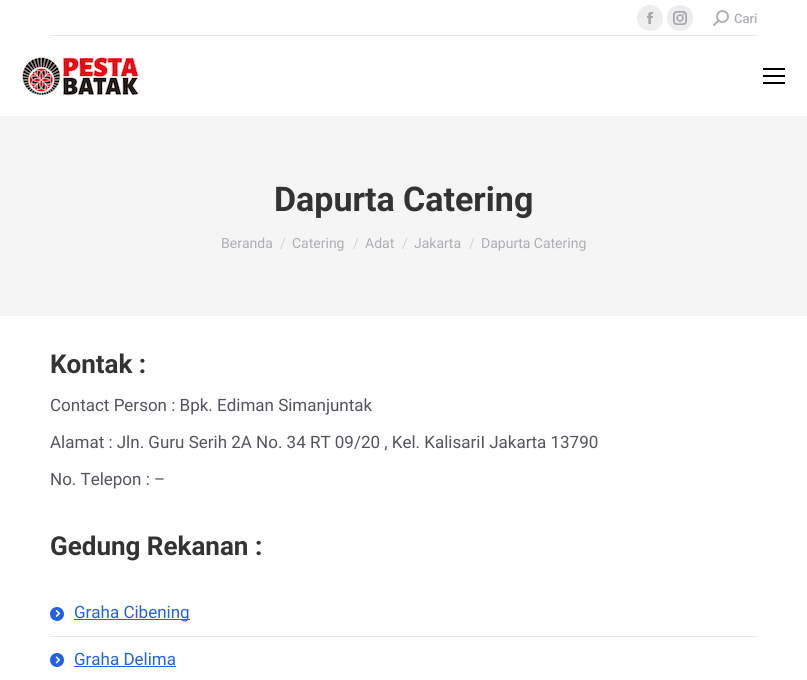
#include <cairo.h>
#include <math.h>
#include <stddef.h>

static cairo_t *c;
static void C(unsigned color){cairo_set_source_rgb(c, (color >> 16) / 255.0, (color >> 8 & 255) / 255.0, (color & 255) / 255.0);}
static void F(const char *family, double size, int italic, int bold){cairo_select_font_face(c, family, italic ? CAIRO_FONT_SLANT_ITALIC : CAIRO_FONT_SLANT_NORMAL,bold ? CAIRO_FONT_WEIGHT_BOLD : CAIRO_FONT_WEIGHT_NORMAL);cairo_set_font_size(c, size);}
static void T(double x, double y, const char *s){cairo_move_to(c, x, y);cairo_show_text(c, s);}
static void R(double x, double y, double w, double h){cairo_rectangle(c, x, y, w, h);cairo_fill(c);}
static void I(const char *path, double x, double y, double w, double h){cairo_surface_t *image = cairo_image_surface_create_from_png(path);cairo_save(c);cairo_set_source_surface(c, image, x, y);cairo_rectangle(c, x, y, w, h);cairo_fill(c);cairo_restore(c);cairo_surface_destroy(image);}
int main(void) {
cairo_surface_t *surface = cairo_image_surface_create(CAIRO_FORMAT_RGB24, 807, 680);
c = cairo_create(surface);
cairo_font_options_t *options = cairo_font_options_create();
cairo_font_options_set_hint_metrics(options, CAIRO_HINT_METRICS_OFF);
cairo_font_options_set_hint_style(options, CAIRO_HINT_STYLE_NONE);
cairo_set_font_options(c, options);
cairo_set_miter_limit(c, 4);
C(0xffffff);
cairo_paint(c);
C(0xededee);
cairo_arc(c,650,18,13,0,2 * M_PI);
cairo_fill(c);
I("1.png",647,12,6,12);
cairo_arc(c,680,18,13,0,2 * M_PI);
cairo_fill(c);
I("2.png",673,11,14,14);
I("3.png",713,10,16,16);
F("Roboto Medium",13,0,0);
C(0xadafb3);
T(734,23,"Cari");
C(0xe7e7e7);
R(50,35,707,1);
I("4.png",22,57,117,39);
C(0x000000);
R(763,68,22,2);
R(763,75,22,2);
R(763,82,22,2);
C(0xf5f5f5);
R(0,116,807,200);
F("Roboto",34,0,1);
C(0x333333);
T(274,211,"Dapurta Catering");
F("Roboto",14,0,0);
C(0xadafb3);
T(221,248,"Beranda");
C(0xd1d2d4);
T(280,248,"/");
C(0xadafb3);
T(292,248,"Catering");
C(0xd1d2d4);
T(353,248,"/");
C(0xadafb3);
T(365,248,"Adat");
C(0xd1d2d4);
T(402,248,"/");
C(0xadafb3);
T(414,248,"Jakarta");
C(0xd1d2d4);
T(469,248,"/");
C(0xadafb3);
T(481,248,"Dapurta Catering");
F("Roboto",26,0,1);
C(0x333333);
T(50,373,"Kontak :");
F("Roboto",17,0,0);
C(0x55535e);
T(50,411,"Contact Person : Bpk. Ediman Simanjuntak");
T(50,448,"Alamat : Jln. Guru Serih 2A No. 34 RT 09/20 , Kel. KalisariI Jakarta 13790");
T(50,485,"No. Telepon : –");
F("Roboto",26,0,1);
C(0x333333);
T(50,555,"Gedung Rekanan :");
C(0x2262e2);
cairo_new_path(c);
cairo_arc(c,57,614,7,0,2 * M_PI);
cairo_fill(c);
R(74,619,116,1);
F("Roboto",17,0,0);
T(74,618,"Graha Cibening");
I("5.png",55,609,6,8);
C(0xe7e7e7);
R(50,636,707,1);
C(0x2262e2);
cairo_arc(c,57,660,7,0,2 * M_PI);
cairo_fill(c);
T(74,665,"Graha Delima");
R(74,666,102,1);
I("6.png",55,656,6,8);
cairo_surface_write_to_png(surface, "o.png");
cairo_font_options_destroy(options);
cairo_destroy(c);
cairo_surface_destroy(surface);
return 0;
}
